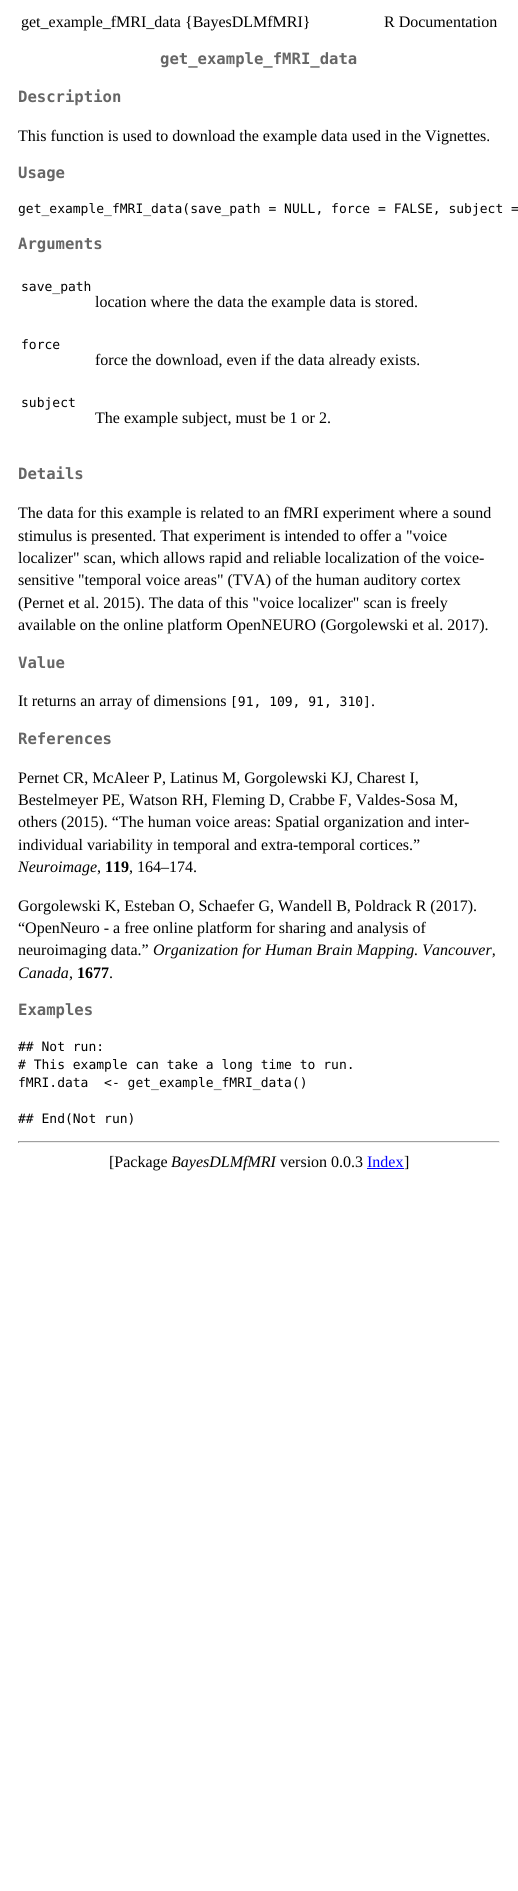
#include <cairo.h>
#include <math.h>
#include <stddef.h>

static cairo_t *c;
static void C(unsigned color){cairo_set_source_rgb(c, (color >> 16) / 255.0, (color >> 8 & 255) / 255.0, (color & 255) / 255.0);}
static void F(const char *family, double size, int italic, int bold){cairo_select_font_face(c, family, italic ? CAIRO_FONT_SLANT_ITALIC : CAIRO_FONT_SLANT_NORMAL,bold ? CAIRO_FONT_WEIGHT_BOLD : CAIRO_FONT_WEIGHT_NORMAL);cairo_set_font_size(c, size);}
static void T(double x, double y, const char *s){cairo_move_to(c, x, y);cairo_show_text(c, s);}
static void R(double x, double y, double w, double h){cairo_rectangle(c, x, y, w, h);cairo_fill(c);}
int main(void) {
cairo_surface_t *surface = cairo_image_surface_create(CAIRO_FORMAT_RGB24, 518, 1891);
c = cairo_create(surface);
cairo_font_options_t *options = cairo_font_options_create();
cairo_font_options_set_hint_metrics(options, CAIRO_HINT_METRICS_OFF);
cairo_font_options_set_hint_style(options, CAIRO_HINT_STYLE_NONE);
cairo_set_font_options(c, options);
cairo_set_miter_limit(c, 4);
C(0xffffff);
cairo_paint(c);
F("Liberation Serif",16,0,0);
C(0x000000);
T(21,27,"get_example_fMRI_data {BayesDLMfMRI}");
T(384,27,"R Documentation");
F("DejaVu Sans Mono",15.6,0,1);
C(0x666666);
T(160,64,"get_example_fMRI_data");
T(18,102,"Description");
F("Liberation Serif",16,0,0);
C(0x000000);
T(18,141,"This function is used to download the example data used in the Vignettes.");
F("DejaVu Sans Mono",15.6,0,1);
C(0x666666);
T(18,178,"Usage");
F("DejaVu Sans Mono",13,0,0);
C(0x000000);
T(18,213,"get_example_fMRI_data(save_path = NULL, force = FALSE, subject =");
F("DejaVu Sans Mono",15.6,0,1);
C(0x666666);
T(18,249,"Arguments");
F("DejaVu Sans Mono",13,0,0);
C(0x000000);
T(21,291,"save_path");
F("Liberation Serif",16,0,0);
T(95,307,"location where the data the example data is stored.");
F("DejaVu Sans Mono",13,0,0);
T(21,349,"force");
F("Liberation Serif",16,0,0);
T(95,365,"force the download, even if the data already exists.");
F("DejaVu Sans Mono",13,0,0);
T(21,407,"subject");
F("Liberation Serif",16,0,0);
T(95,423,"The example subject, must be 1 or 2.");
F("DejaVu Sans Mono",15.6,0,1);
C(0x666666);
T(18,479,"Details");
F("Liberation Serif",16,0,0);
C(0x000000);
T(18,518,"The data for this example is related to an fMRI experiment where a sound");
T(18,541,"stimulus is presented. That experiment is intended to offer a \"voice");
T(18,563,"localizer\" scan, which allows rapid and reliable localization of the voice-");
T(18,585,"sensitive \"temporal voice areas\" (TVA) of the human auditory cortex");
T(18,608,"(Pernet et al. 2015). The data of this \"voice localizer\" scan is freely");
T(18,630,"available on the online platform OpenNEURO (Gorgolewski et al. 2017).");
F("DejaVu Sans Mono",15.6,0,1);
C(0x666666);
T(18,668,"Value");
F("Liberation Serif",16,0,0);
C(0x000000);
T(18,706,"It returns an array of dimensions");
F("DejaVu Sans Mono",13,0,0);
T(230,706,"[91, 109, 91, 310]");
F("Liberation Serif",16,0,0);
T(371,706,".");
F("DejaVu Sans Mono",15.6,0,1);
C(0x666666);
T(18,744,"References");
F("Liberation Serif",16,0,0);
C(0x000000);
T(18,783,"Pernet CR, McAleer P, Latinus M, Gorgolewski KJ, Charest I,");
T(18,805,"Bestelmeyer PE, Watson RH, Fleming D, Crabbe F, Valdes-Sosa M,");
T(18,827,"others (2015). “The human voice areas: Spatial organization and inter-");
T(18,850,"individual variability in temporal and extra-temporal cortices.”");
F("Liberation Serif",16,1,0);
T(18,872,"Neuroimage");
F("Liberation Serif",16,0,0);
T(97,872,",");
F("Liberation Serif",16,0,1);
T(105,872,"119");
F("Liberation Serif",16,0,0);
T(129,872,", 164–174.");
T(18,911,"Gorgolewski K, Esteban O, Schaefer G, Wandell B, Poldrack R (2017).");
T(18,933,"“OpenNeuro - a free online platform for sharing and analysis of");
T(18,955,"neuroimaging data.”");
F("Liberation Serif",16,1,0);
T(153,955,"Organization for Human Brain Mapping. Vancouver,");
T(18,978,"Canada");
F("Liberation Serif",16,0,0);
T(69,978,",");
F("Liberation Serif",16,0,1);
T(77,978,"1677");
F("Liberation Serif",16,0,0);
T(109,978,".");
F("DejaVu Sans Mono",15.6,0,1);
C(0x666666);
T(18,1015,"Examples");
F("DejaVu Sans Mono",13,0,0);
C(0x000000);
T(18,1051,"## Not run:");
T(18,1069,"# This example can take a long time to run.");
T(18,1087,"fMRI.data  <- get_example_fMRI_data()");
T(18,1123,"## End(Not run)");
C(0x9f9f9f);
R(18,1141,482,1);
C(0xeeeeee);
R(499,1141,1,2);
R(18,1142,482,1);
C(0x9f9f9f);
R(18,1141,1,2);
F("Liberation Serif",16,0,0);
C(0x000000);
T(109,1167,"[Package");
F("Liberation Serif",16,1,0);
T(171,1167,"BayesDLMfMRI");
F("Liberation Serif",16,0,0);
T(280,1167,"version 0.0.3");
C(0x0000ff);
T(367,1167,"Index");
R(367,1168,37,1);
C(0x000000);
T(404,1167,"]");
cairo_surface_write_to_png(surface, "o.png");
cairo_font_options_destroy(options);
cairo_destroy(c);
cairo_surface_destroy(surface);
return 0;
}
